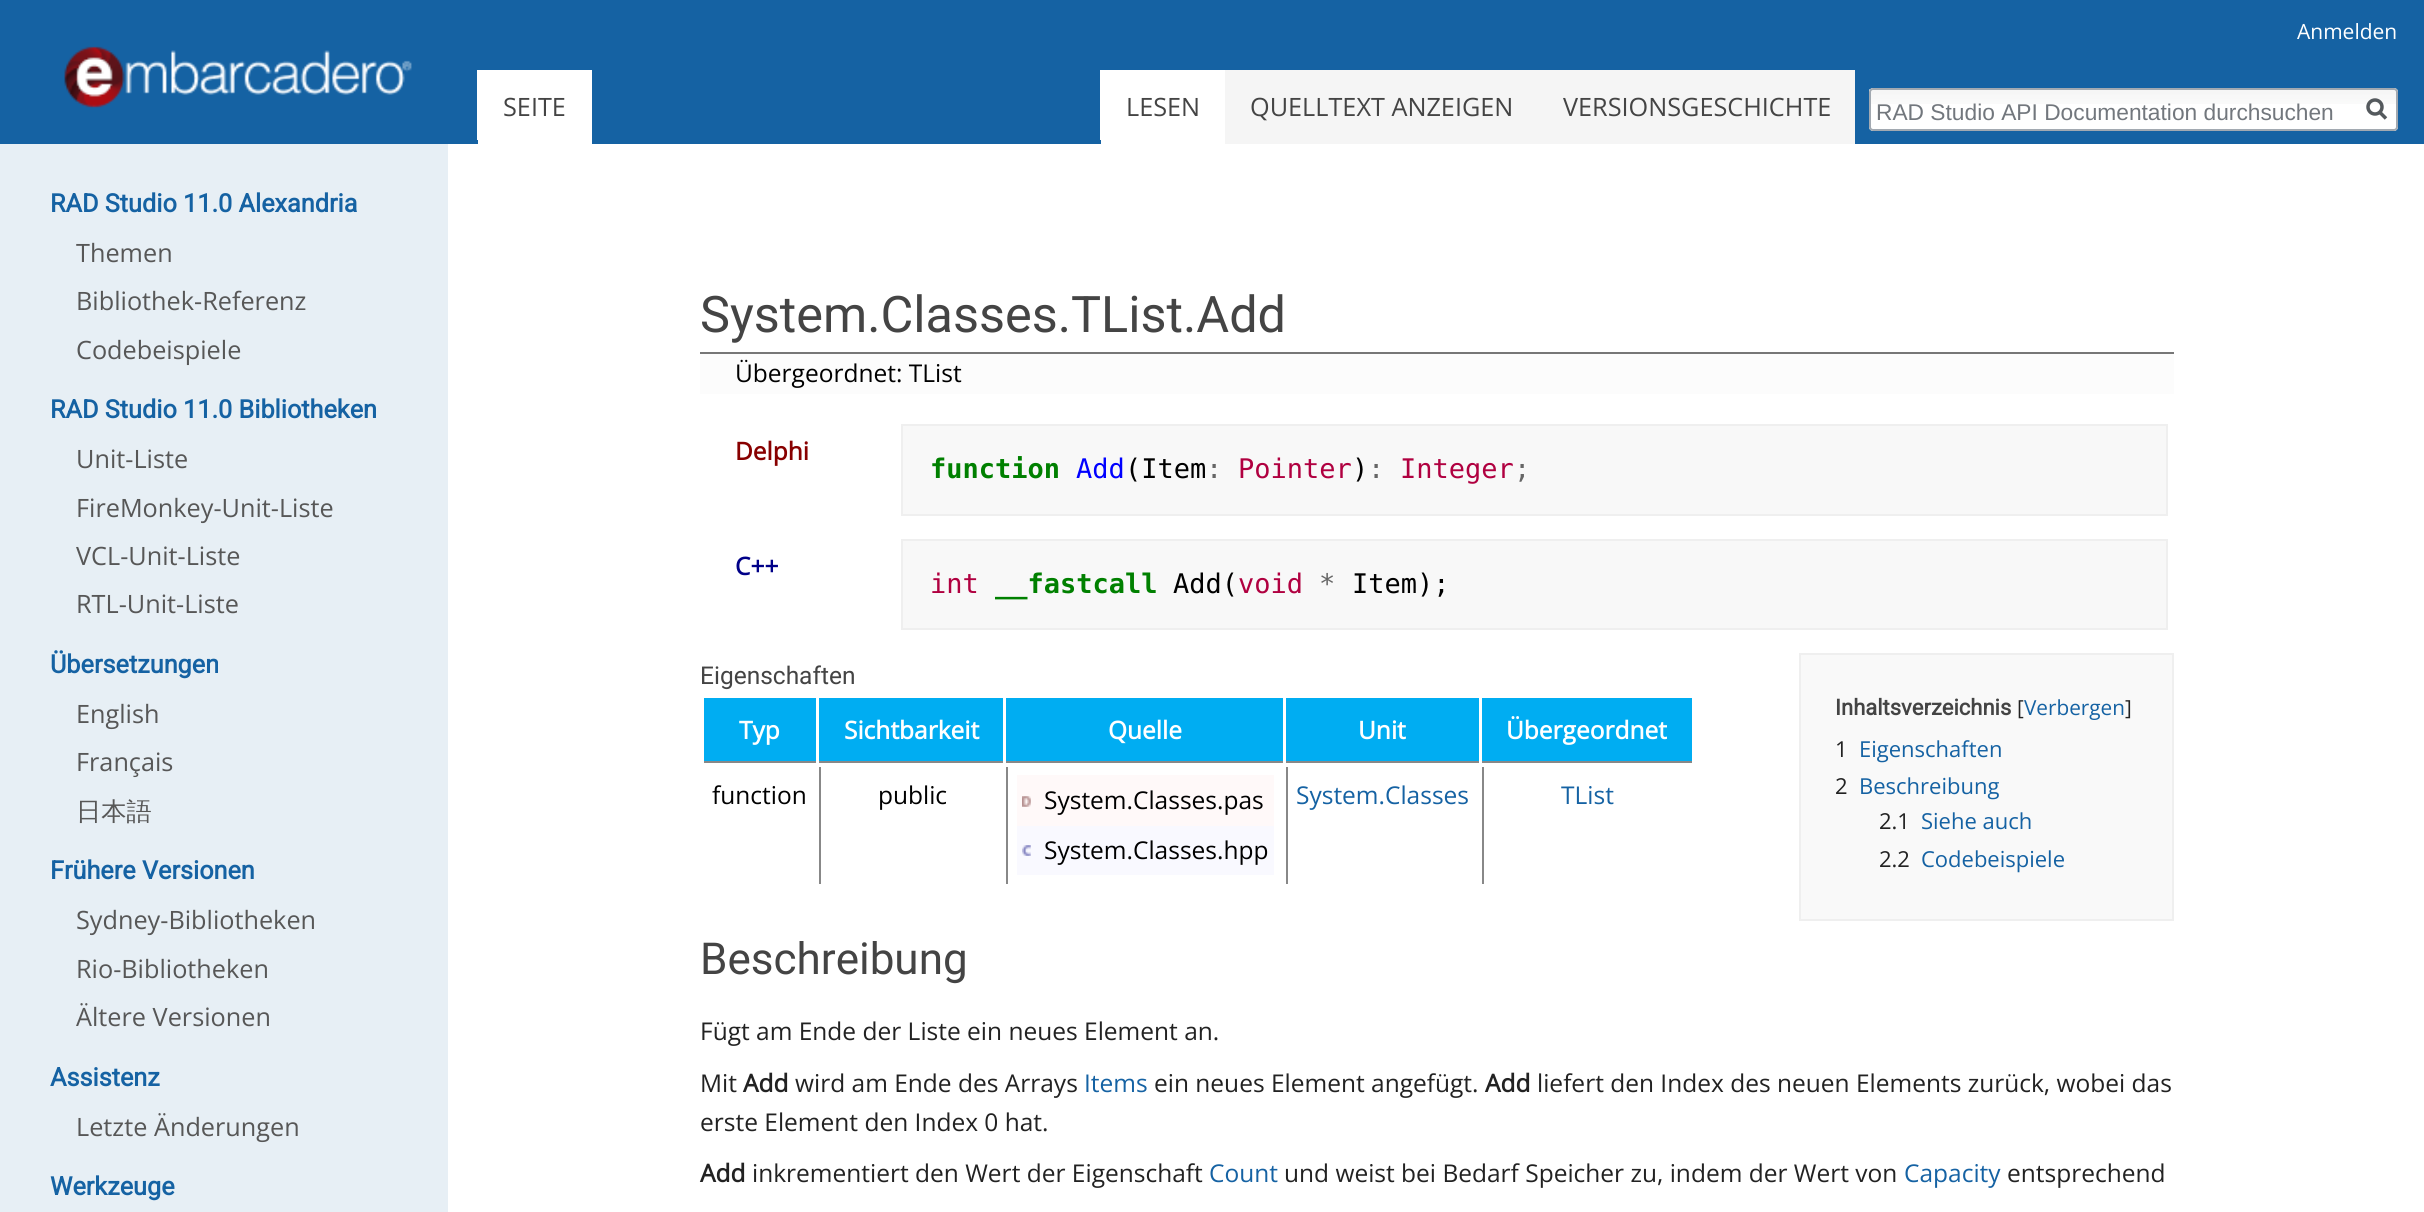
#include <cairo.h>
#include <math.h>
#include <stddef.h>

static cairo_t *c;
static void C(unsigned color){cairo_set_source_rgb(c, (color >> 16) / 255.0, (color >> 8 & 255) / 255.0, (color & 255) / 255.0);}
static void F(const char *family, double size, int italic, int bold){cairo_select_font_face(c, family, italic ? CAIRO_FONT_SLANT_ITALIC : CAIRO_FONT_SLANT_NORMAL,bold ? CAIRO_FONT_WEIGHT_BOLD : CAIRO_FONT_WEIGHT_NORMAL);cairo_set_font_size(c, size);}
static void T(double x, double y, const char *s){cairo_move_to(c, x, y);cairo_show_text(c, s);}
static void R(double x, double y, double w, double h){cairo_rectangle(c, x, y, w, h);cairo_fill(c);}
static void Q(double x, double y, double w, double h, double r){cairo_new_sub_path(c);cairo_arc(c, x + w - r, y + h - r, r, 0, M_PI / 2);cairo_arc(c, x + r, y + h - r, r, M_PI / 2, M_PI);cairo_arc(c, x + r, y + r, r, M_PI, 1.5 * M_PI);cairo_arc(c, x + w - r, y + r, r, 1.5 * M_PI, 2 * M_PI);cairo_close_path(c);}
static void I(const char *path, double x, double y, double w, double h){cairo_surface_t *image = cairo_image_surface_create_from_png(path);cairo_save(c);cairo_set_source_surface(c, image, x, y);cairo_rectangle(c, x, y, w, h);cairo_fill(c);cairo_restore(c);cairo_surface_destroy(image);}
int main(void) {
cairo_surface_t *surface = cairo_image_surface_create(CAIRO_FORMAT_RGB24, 2424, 1212);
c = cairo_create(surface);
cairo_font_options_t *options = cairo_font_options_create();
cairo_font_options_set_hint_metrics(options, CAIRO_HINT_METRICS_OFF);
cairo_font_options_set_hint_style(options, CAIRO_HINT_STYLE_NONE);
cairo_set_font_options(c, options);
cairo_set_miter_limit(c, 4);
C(0xe7eff5);
cairo_paint(c);
C(0x1562a3);
R(0,0,2424,144);
F("Open Sans",21,0,0);
C(0xffffff);
T(2297,39,"Anmelden");
R(477,70,1,70);
R(478,70,114,74);
F("Open Sans",25.25,0,0);
C(0x444444);
T(503,116,"SEITE");
C(0xffffff);
R(1100,70,1,70);
R(1101,70,124,74);
C(0x444444);
T(1126,116,"LESEN");
C(0xf5f5f5);
R(1225,70,630,74);
C(0x444444);
T(1250,116,"QUELLTEXT ANZEIGEN");
T(1563,116,"VERSIONSGESCHICHTE");
C(0xffffff);
Q(1869,88,529,43,4);
cairo_fill(c);
I("1.png",1869,89,529,15);
Q(1870,89,527,41,3);
C(0xa2a9b1);
cairo_stroke(c);
F("Liberation Sans",22.75,0,0);
C(0x72777d);
T(1876,120,"RAD Studio API Documentation durchsuchen");
cairo_new_path(c);
cairo_move_to(c,2386,118.5);
cairo_line_to(c,2379,111.5);
C(0x54595d);
cairo_set_line_width(c,3.5);
cairo_stroke(c);
cairo_arc(c,2375,107,7,0,2 * M_PI);
cairo_stroke(c);
I("2.png",64,46,348,62);
F("Roboto",25.25,0,1);
C(0x1562a3);
T(50,212,"RAD Studio 11.0 Alexandria");
F("Open Sans",25.25,0,0);
C(0x575757);
T(76,262,"Themen");
T(76,310,"Bibliothek-Referenz");
T(76,359,"Codebeispiele");
F("Roboto",25.25,0,1);
C(0x1562a3);
T(50,418,"RAD Studio 11.0 Bibliotheken");
F("Open Sans",25.25,0,0);
C(0x575757);
T(76,468,"Unit-Liste");
T(76,517,"FireMonkey-Unit-Liste");
T(76,565,"VCL-Unit-Liste");
T(76,613,"RTL-Unit-Liste");
F("Roboto",25.25,0,1);
C(0x1562a3);
T(50,673,"Übersetzungen");
F("Open Sans",25.25,0,0);
C(0x575757);
T(76,723,"English");
T(76,771,"Français");
F("WenQuanYi Zen Hei Medium",25.25,0,0);
T(76,820,"日本語");
F("Roboto",25.25,0,1);
C(0x1562a3);
T(50,879,"Frühere Versionen");
F("Open Sans",25.25,0,0);
C(0x575757);
T(76,929,"Sydney-Bibliotheken");
T(76,978,"Rio-Bibliotheken");
T(76,1026,"Ältere Versionen");
F("Roboto",25.25,0,1);
C(0x1562a3);
T(50,1086,"Assistenz");
F("Open Sans",25.25,0,0);
C(0x575757);
T(76,1136,"Letzte Änderungen");
F("Roboto",25.25,0,1);
C(0x1562a3);
T(50,1195,"Werkzeuge");
C(0xffffff);
R(448,144,1976,1068);
F("Roboto",50.4,0,0);
C(0x444444);
T(700,332,"System.Classes.TList.Add");
C(0xfcfcfc);
R(700,354,1474,40);
C(0x777777);
R(700,352,1474,2);
F("Open Sans",24.5,0,0);
C(0x000000);
T(735,382,"Übergeordnet: TList");
F("Open Sans",24.5,0,1);
C(0x880000);
T(735,460,"Delphi");
C(0xf8f8f8);
cairo_rectangle(c,902,425,1265,90);
cairo_fill_preserve(c);
C(0xefefef);
cairo_set_line_width(c,2);
cairo_stroke(c);
F("DejaVu Sans Mono",27,0,1);
C(0x008000);
T(930,478,"function");
F("DejaVu Sans Mono",27,0,0);
C(0x0000ff);
T(1076,478,"Add");
C(0x000000);
T(1125,478,"(Item");
C(0x666666);
T(1206,478,":");
C(0xb00040);
T(1238,478,"Pointer");
C(0x000000);
T(1352,478,")");
C(0x666666);
T(1368,478,":");
C(0xb00040);
T(1400,478,"Integer");
C(0x666666);
T(1514,478,";");
F("Open Sans",24.5,0,1);
C(0x000088);
T(735,575,"C++");
C(0xf8f8f8);
cairo_rectangle(c,902,540,1265,89);
cairo_fill_preserve(c);
C(0xefefef);
cairo_stroke(c);
F("DejaVu Sans Mono",27,0,0);
C(0xb00040);
T(930,593,"int");
F("DejaVu Sans Mono",27,0,1);
C(0x008000);
T(995,593,"__fastcall");
F("DejaVu Sans Mono",27,0,0);
C(0x000000);
T(1173,593,"Add(");
C(0xb00040);
T(1238,593,"void");
C(0x666666);
T(1319,593,"*");
C(0x000000);
T(1352,593,"Item);");
F("Roboto",24.5,0,0);
C(0x444444);
T(700,684,"Eigenschaften");
C(0x00adf2);
R(704,698,112,63);
C(0x888888);
R(704,761,112,2);
F("Open Sans",24.5,0,1);
C(0xffffff);
T(739,739,"Typ");
C(0x00adf2);
R(819,698,184,63);
C(0x888888);
R(819,761,184,2);
C(0xffffff);
T(844,739,"Sichtbarkeit");
C(0x00adf2);
R(1006,698,277,63);
C(0x888888);
R(1006,761,277,2);
C(0xffffff);
T(1108,739,"Quelle");
C(0x00adf2);
R(1286,698,193,63);
C(0x888888);
R(1286,761,193,2);
C(0xffffff);
T(1358,739,"Unit");
C(0x00adf2);
R(1482,698,210,63);
C(0x888888);
R(1482,761,210,2);
C(0xffffff);
T(1506,739,"Übergeordnet");
F("Open Sans",24.5,0,0);
C(0x000000);
T(712,804,"function");
C(0x888888);
R(819,767,2,117);
C(0x000000);
T(878,804,"public");
C(0x888888);
R(1006,767,2,117);
C(0xfff9f9);
R(1017,775,257,51);
I("3.png",1022,796,9,11);
C(0x000000);
T(1044,809,"System.Classes.pas");
C(0xf9f9ff);
R(1017,826,257,49);
I("4.png",1022,845,9,11);
C(0x000000);
T(1044,859,"System.Classes.hpp");
C(0x888888);
R(1286,767,2,117);
C(0x1562a3);
T(1296,804,"System.Classes");
C(0x888888);
R(1482,767,2,117);
C(0x1562a3);
T(1561,804,"TList");
C(0xf9f9f9);
cairo_rectangle(c,1800,654,373,266);
cairo_fill_preserve(c);
C(0xefefef);
cairo_stroke(c);
F("Roboto",22,0,1);
C(0x444444);
T(1835,715,"Inhaltsverzeichnis");
F("Open Sans",20.75,0,0);
C(0x222222);
T(2017,715,"[");
C(0x1562a3);
T(2024,715,"Verbergen");
C(0x222222);
T(2125,715,"]");
F("Open Sans",22,0,0);
T(1835,757,"1");
C(0x1562a3);
T(1859,757,"Eigenschaften");
C(0x222222);
T(1835,794,"2");
C(0x1562a3);
T(1859,794,"Beschreibung");
C(0x222222);
T(1879,829,"2.1");
C(0x1562a3);
T(1921,829,"Siehe auch");
C(0x222222);
T(1879,867,"2.2");
C(0x1562a3);
T(1921,867,"Codebeispiele");
F("Roboto",44,0,0);
C(0x444444);
T(700,974,"Beschreibung");
F("Open Sans",24.5,0,0);
C(0x222222);
T(700,1040,"Fügt am Ende der Liste ein neues Element an.");
T(700,1092,"Mit");
F("Open Sans",24.5,0,1);
T(743,1092,"Add");
F("Open Sans",24.5,0,0);
T(795,1092,"wird am Ende des Arrays");
C(0x1562a3);
T(1084,1092,"Items");
C(0x222222);
T(1154,1092,"ein neues Element angefügt.");
F("Open Sans",24.5,0,1);
T(1485,1092,"Add");
F("Open Sans",24.5,0,0);
T(1537,1092,"liefert den Index des neuen Elements zurück, wobei das");
T(700,1131,"erste Element den Index 0 hat.");
F("Open Sans",24.5,0,1);
T(700,1182,"Add");
F("Open Sans",24.5,0,0);
T(752,1182,"inkrementiert den Wert der Eigenschaft");
C(0x1562a3);
T(1209,1182,"Count");
C(0x222222);
T(1284,1182,"und weist bei Bedarf Speicher zu, indem der Wert von");
C(0x1562a3);
T(1904,1182,"Capacity");
C(0x222222);
T(2007,1182,"entsprechend");
cairo_surface_write_to_png(surface, "o.png");
cairo_font_options_destroy(options);
cairo_destroy(c);
cairo_surface_destroy(surface);
return 0;
}
